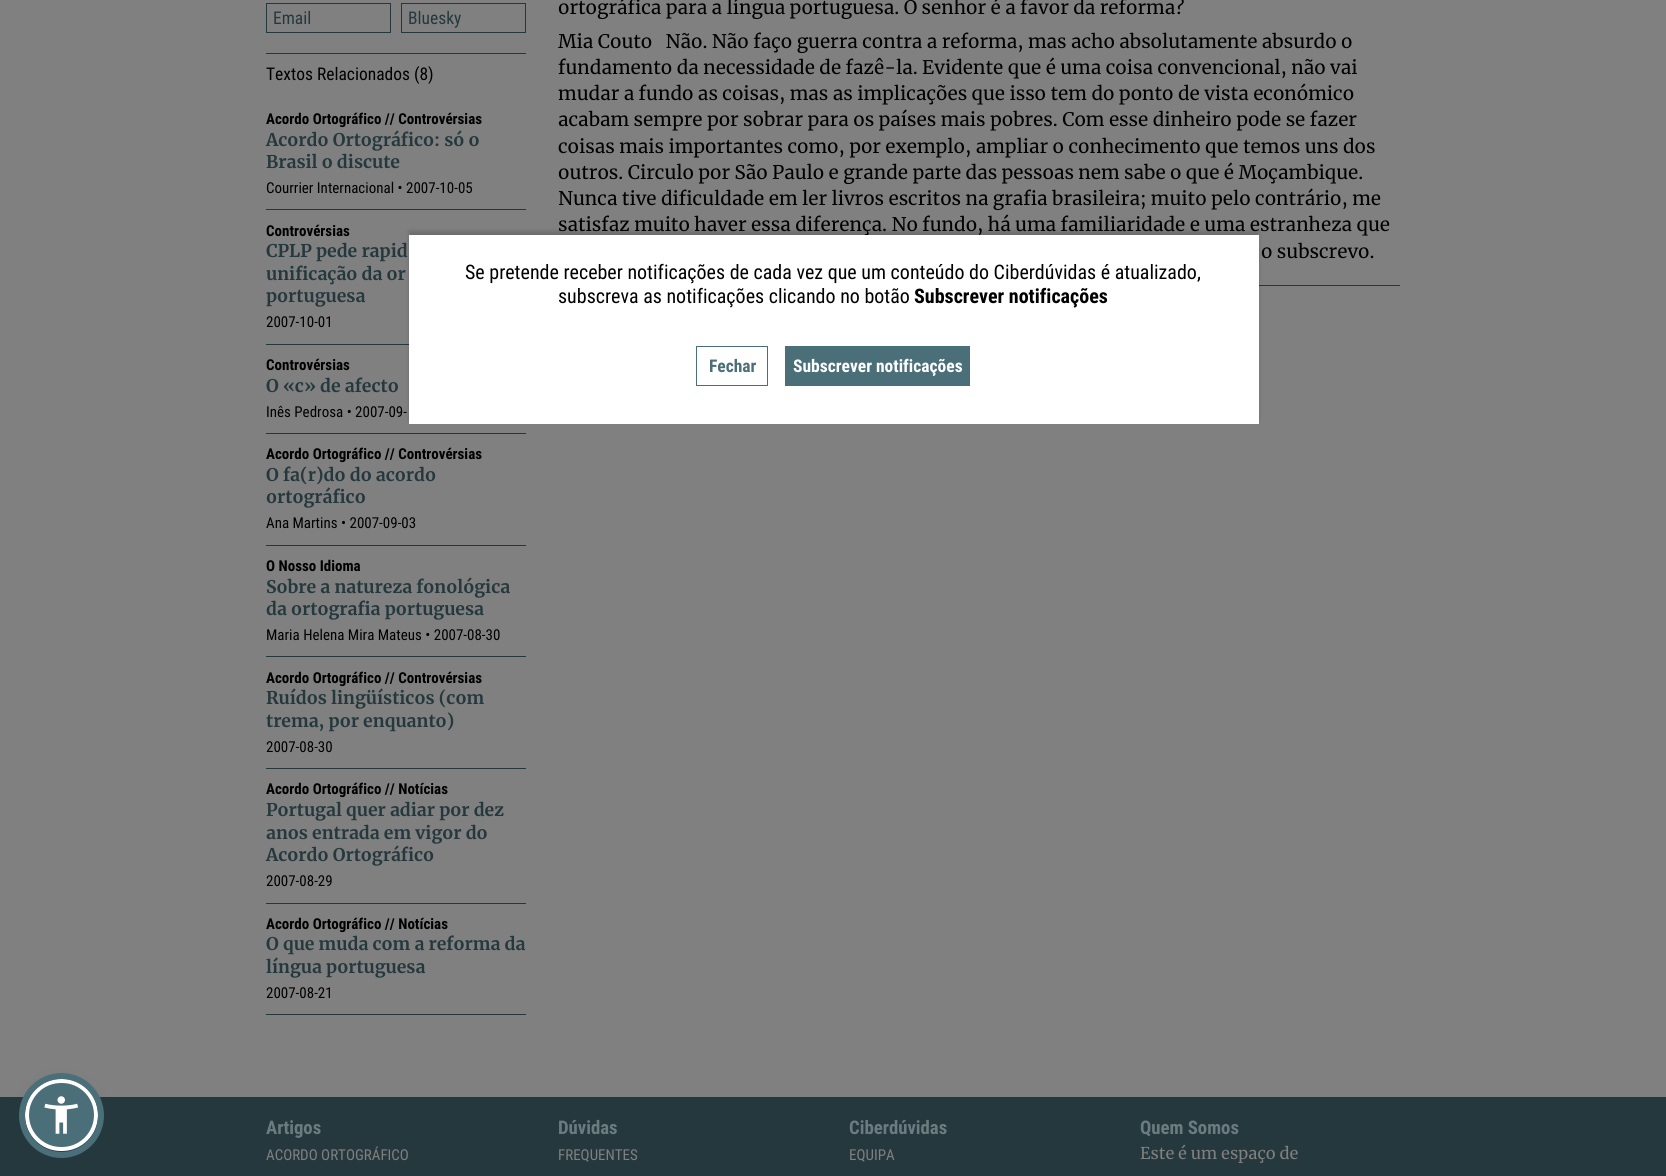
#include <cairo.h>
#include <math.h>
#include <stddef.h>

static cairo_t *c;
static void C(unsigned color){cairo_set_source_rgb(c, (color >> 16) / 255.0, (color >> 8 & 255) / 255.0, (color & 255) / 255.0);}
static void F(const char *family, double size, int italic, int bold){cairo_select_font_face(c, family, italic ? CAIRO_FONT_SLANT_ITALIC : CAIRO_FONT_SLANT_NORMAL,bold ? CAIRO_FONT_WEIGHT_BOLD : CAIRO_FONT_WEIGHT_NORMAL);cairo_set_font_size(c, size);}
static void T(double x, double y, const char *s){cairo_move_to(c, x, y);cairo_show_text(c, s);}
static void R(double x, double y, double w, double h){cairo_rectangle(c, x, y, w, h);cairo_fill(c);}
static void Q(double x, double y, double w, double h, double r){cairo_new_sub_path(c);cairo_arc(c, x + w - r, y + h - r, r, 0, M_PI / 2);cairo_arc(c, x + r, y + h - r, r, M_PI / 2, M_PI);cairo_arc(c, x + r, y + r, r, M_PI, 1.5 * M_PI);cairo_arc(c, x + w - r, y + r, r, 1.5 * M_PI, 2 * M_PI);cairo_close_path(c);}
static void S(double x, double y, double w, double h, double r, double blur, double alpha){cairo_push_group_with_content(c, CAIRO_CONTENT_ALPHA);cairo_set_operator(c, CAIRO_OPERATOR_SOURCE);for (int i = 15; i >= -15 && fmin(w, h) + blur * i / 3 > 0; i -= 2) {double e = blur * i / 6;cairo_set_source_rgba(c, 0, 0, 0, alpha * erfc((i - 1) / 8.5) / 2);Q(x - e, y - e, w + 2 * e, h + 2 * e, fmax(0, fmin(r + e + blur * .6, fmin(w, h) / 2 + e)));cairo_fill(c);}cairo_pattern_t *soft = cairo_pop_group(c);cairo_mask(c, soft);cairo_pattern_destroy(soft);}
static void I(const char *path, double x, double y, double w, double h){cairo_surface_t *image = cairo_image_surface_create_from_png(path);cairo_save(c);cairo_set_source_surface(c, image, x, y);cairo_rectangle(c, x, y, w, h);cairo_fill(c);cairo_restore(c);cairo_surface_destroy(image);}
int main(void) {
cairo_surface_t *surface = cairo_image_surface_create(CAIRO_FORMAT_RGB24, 1666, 1176);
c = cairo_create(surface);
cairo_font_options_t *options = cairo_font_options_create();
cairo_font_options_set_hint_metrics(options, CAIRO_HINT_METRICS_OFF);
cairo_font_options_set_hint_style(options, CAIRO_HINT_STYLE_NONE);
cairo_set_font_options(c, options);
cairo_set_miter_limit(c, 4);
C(0x808080);
cairo_paint(c);
C(0x25383d);
R(0,1097,1666,79);
C(0x5d6494);
S(25,1081,73,73,36.5,2.5,.2);
C(0x252c61);
S(25,1085,73,73,36.5,9.5,.15);
C(0x4a6f79);
Q(27,1081,69,68,34);
cairo_fill_preserve(c);
C(0xffffff);
cairo_set_line_width(c,4);
cairo_stroke(c);
cairo_arc(c,61.5,1115.5,39.5,0,2 * M_PI);
C(0x4a6f79);
cairo_set_line_width(c,6);
cairo_stroke(c);
I("1.png",44,1096,35,38);
cairo_rectangle(c,266.5,3.5,124,29);
C(0x25383d);
cairo_set_line_width(c,1);
cairo_stroke(c);
F("Roboto Condensed",17.5,0,0);
T(273,24,"Email");
cairo_rectangle(c,401.5,3.5,124,29);
cairo_stroke(c);
T(408,24,"Bluesky");
R(266,53,260,1);
C(0x000000);
T(266,80,"Textos Relacionados (8)");
C(0x25383d);
R(266,209,260,1);
F("Roboto Condensed",15,0,1);
C(0x000000);
T(266,124,"Acordo Ortográfico // Controvérsias");
F("Merriweather",17.5,0,1);
C(0x25383d);
T(266,146,"Acordo Ortográfico: só o");
T(266,168,"Brasil o discute");
F("Roboto Condensed",15,0,0);
C(0x000000);
T(266,193,"Courrier Internacional • 2007-10-05");
C(0x25383d);
R(266,344,143,1);
F("Roboto Condensed",15,0,1);
C(0x000000);
T(266,236,"Controvérsias");
F("Merriweather",17.5,0,1);
C(0x25383d);
T(266,257,"CPLP pede rapid");
T(266,280,"unificação da or");
T(266,302,"portuguesa");
F("Roboto Condensed",15,0,0);
C(0x000000);
T(266,327,"2007-10-01");
C(0x25383d);
R(266,433,260,1);
F("Roboto Condensed",15,0,1);
C(0x000000);
T(266,370,"Controvérsias");
F("Merriweather",17.5,0,1);
C(0x25383d);
T(266,392,"O «c» de afecto");
F("Roboto Condensed",15,0,0);
C(0x000000);
T(266,417,"Inês Pedrosa • 2007-09-");
C(0x25383d);
R(266,545,260,1);
F("Roboto Condensed",15,0,1);
C(0x000000);
T(266,459,"Acordo Ortográfico // Controvérsias");
F("Merriweather",17.5,0,1);
C(0x25383d);
T(266,481,"O fa(r)do do acordo");
T(266,503,"ortográfico");
F("Roboto Condensed",15,0,0);
C(0x000000);
T(266,528,"Ana Martins • 2007-09-03");
C(0x25383d);
R(266,656,260,1);
F("Roboto Condensed",15,0,1);
C(0x000000);
T(266,571,"O Nosso Idioma");
F("Merriweather",17.5,0,1);
C(0x25383d);
T(266,593,"Sobre a natureza fonológica");
T(266,615,"da ortografia portuguesa");
F("Roboto Condensed",15,0,0);
C(0x000000);
T(266,640,"Maria Helena Mira Mateus • 2007-08-30");
C(0x25383d);
R(266,768,260,1);
F("Roboto Condensed",15,0,1);
C(0x000000);
T(266,683,"Acordo Ortográfico // Controvérsias");
F("Merriweather",17.5,0,1);
C(0x25383d);
T(266,704,"Ruídos lingüísticos (com");
T(266,727,"trema, por enquanto)");
F("Roboto Condensed",15,0,0);
C(0x000000);
T(266,752,"2007-08-30");
C(0x25383d);
R(266,903,260,1);
F("Roboto Condensed",15,0,1);
C(0x000000);
T(266,794,"Acordo Ortográfico // Notícias");
F("Merriweather",17.5,0,1);
C(0x25383d);
T(266,816,"Portugal quer adiar por dez");
T(266,839,"anos entrada em vigor do");
T(266,861,"Acordo Ortográfico");
F("Roboto Condensed",15,0,0);
C(0x000000);
T(266,886,"2007-08-29");
C(0x25383d);
R(266,1014,260,1);
F("Roboto Condensed",15,0,1);
C(0x000000);
T(266,929,"Acordo Ortográfico // Notícias");
F("Merriweather",17.5,0,1);
C(0x25383d);
T(266,950,"O que muda com a reforma da");
T(266,973,"língua portuguesa");
F("Roboto Condensed",15,0,0);
C(0x000000);
T(266,998,"2007-08-21");
F("Merriweather",18.75,0,0);
T(558,14,"ortográfica para a língua portuguesa. O senhor é a favor da reforma?");
T(558,48,"Mia Couto   Não. Não faço guerra contra a reforma, mas acho absolutamente absurdo o");
T(558,74,"fundamento da necessidade de fazê-la. Evidente que é uma coisa convencional, não vai");
T(558,100,"mudar a fundo as coisas, mas as implicações que isso tem do ponto de vista económico");
T(558,126,"acabam sempre por sobrar para os países mais pobres. Com esse dinheiro pode se fazer");
T(558,153,"coisas mais importantes como, por exemplo, ampliar o conhecimento que temos uns dos");
T(558,179,"outros. Circulo por São Paulo e grande parte das pessoas nem sabe o que é Moçambique.");
T(558,205,"Nunca tive dificuldade em ler livros escritos na grafia brasileira; muito pelo contrário, me");
T(558,231,"satisfaz muito haver essa diferença. No fundo, há uma familiaridade e uma estranheza que");
T(1261,258,"o subscrevo.");
C(0x25383d);
R(1259,285,141,1);
C(0x000000);
S(409,231,850,189,0,2,.15);
C(0xffffff);
R(409,235,850,189);
F("Roboto Condensed",20,0,0);
C(0x000000);
T(465,279,"Se pretende receber notificações de cada vez que um conteúdo do Ciberdúvidas é atualizado,");
T(558,303,"subscreva as notificações clicando no botão");
F("Roboto Condensed",20,0,1);
T(914,303,"Subscrever notificações");
cairo_rectangle(c,696.5,346.5,71,39);
C(0x4a6f79);
cairo_stroke(c);
F("Roboto Condensed",17.5,0,1);
T(709,372,"Fechar");
R(785,346,185,40);
C(0xffffff);
T(793,372,"Subscrever notificações");
F("Roboto Condensed",18.75,0,1);
C(0x6b7b80);
T(266,1134,"Artigos");
F("Roboto Condensed",15,0,0);
C(0x808080);
T(266,1160,"ACORDO ORTOGRÁFICO");
F("Roboto Condensed",18.75,0,1);
C(0x6b7b80);
T(558,1134,"Dúvidas");
F("Roboto Condensed",15,0,0);
C(0x808080);
T(558,1160,"FREQUENTES");
F("Roboto Condensed",18.75,0,1);
C(0x6b7b80);
T(849,1134,"Ciberdúvidas");
F("Roboto Condensed",15,0,0);
C(0x808080);
T(849,1160,"EQUIPA");
F("Roboto Condensed",18.75,0,1);
C(0x6b7b80);
T(1140,1134,"Quem Somos");
F("Merriweather",16.25,0,0);
C(0x808080);
T(1140,1159,"Este é um espaço de");
cairo_surface_write_to_png(surface, "o.png");
cairo_font_options_destroy(options);
cairo_destroy(c);
cairo_surface_destroy(surface);
return 0;
}
